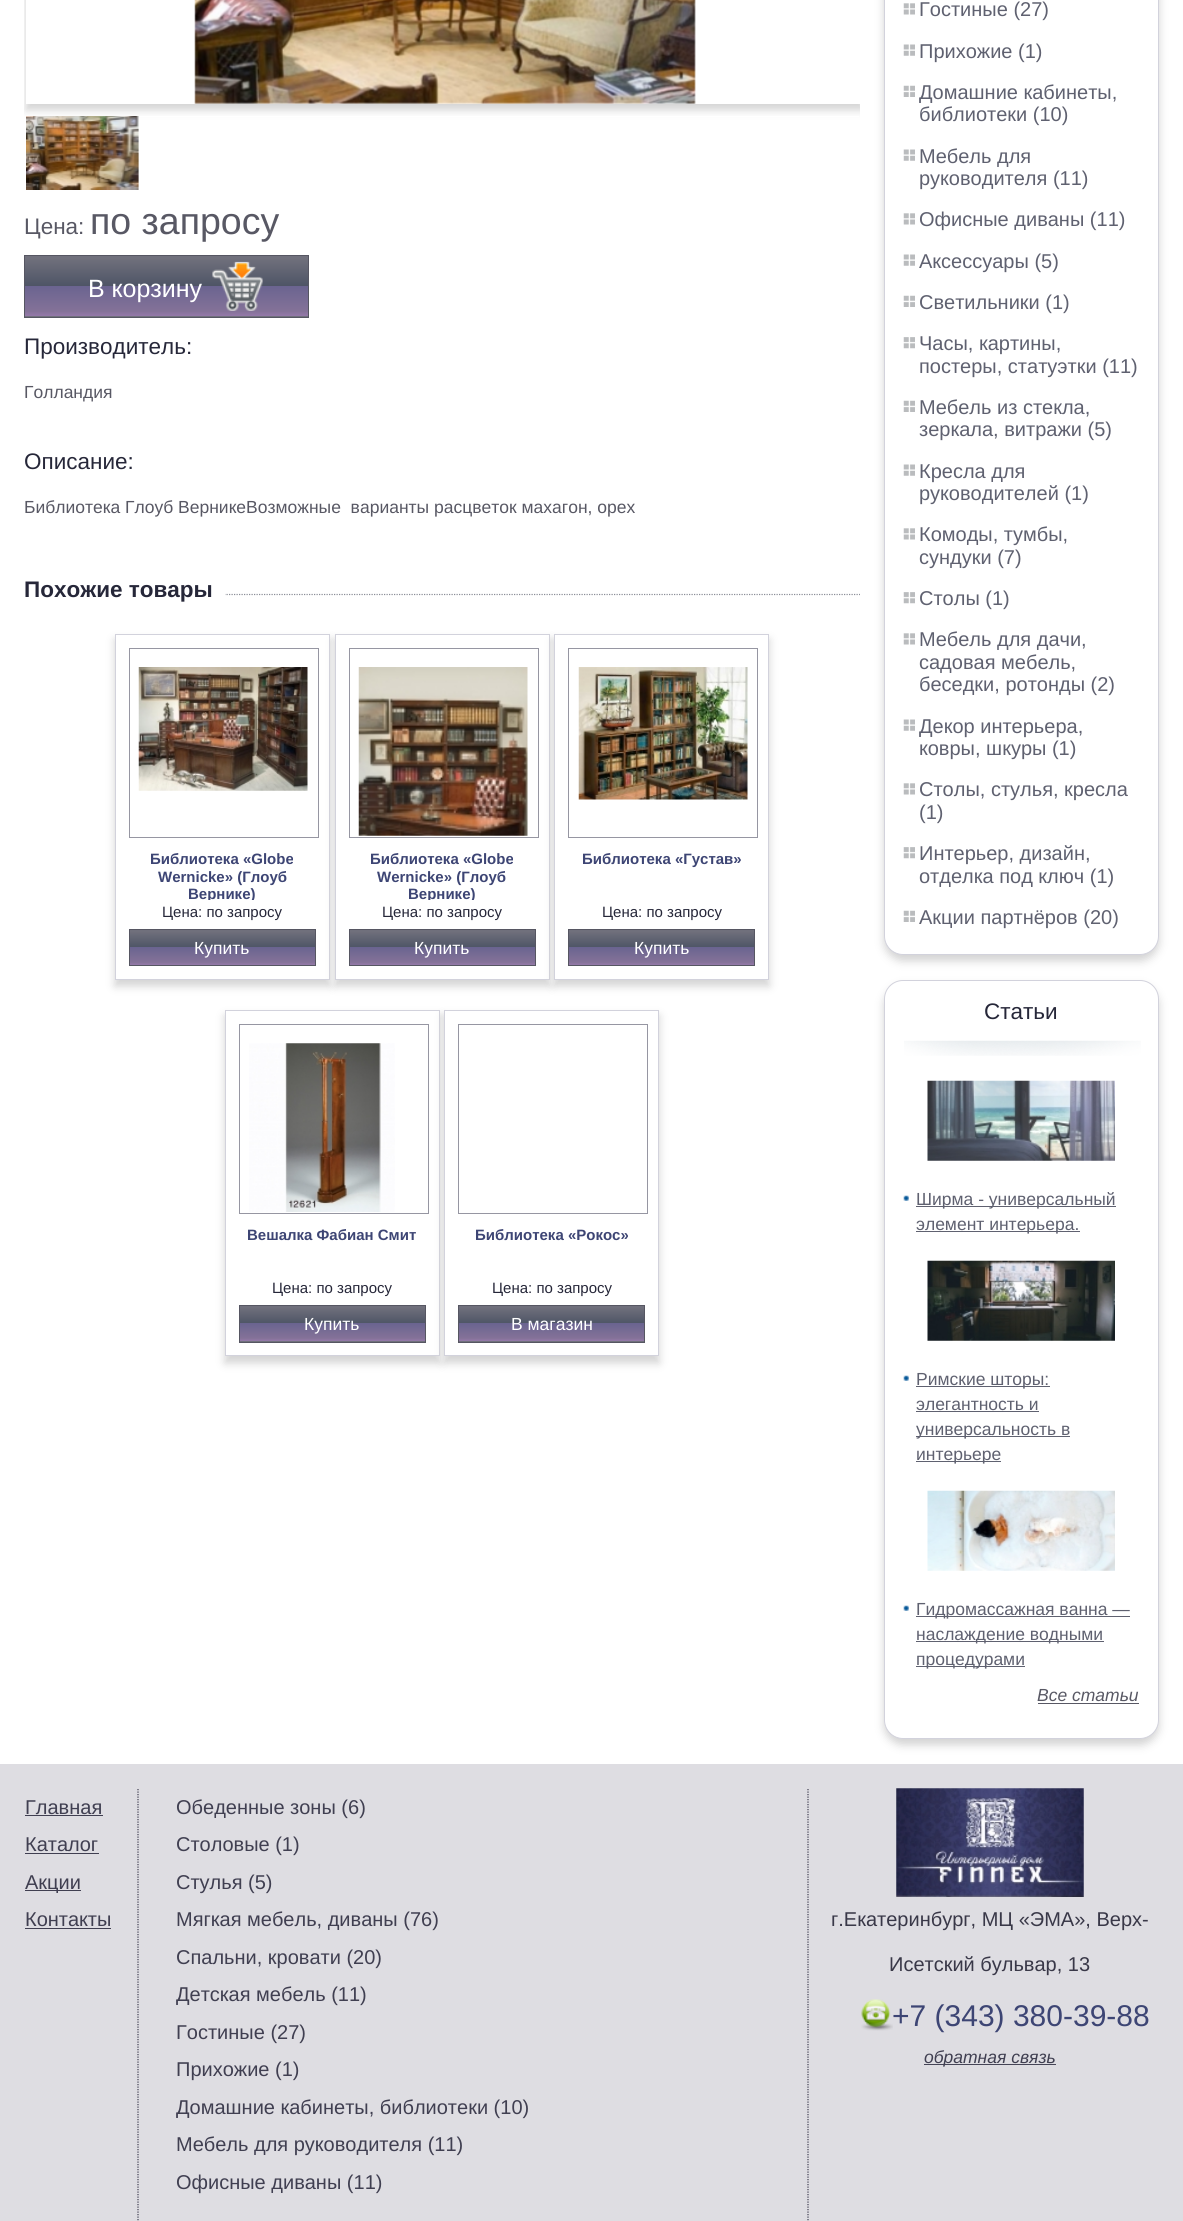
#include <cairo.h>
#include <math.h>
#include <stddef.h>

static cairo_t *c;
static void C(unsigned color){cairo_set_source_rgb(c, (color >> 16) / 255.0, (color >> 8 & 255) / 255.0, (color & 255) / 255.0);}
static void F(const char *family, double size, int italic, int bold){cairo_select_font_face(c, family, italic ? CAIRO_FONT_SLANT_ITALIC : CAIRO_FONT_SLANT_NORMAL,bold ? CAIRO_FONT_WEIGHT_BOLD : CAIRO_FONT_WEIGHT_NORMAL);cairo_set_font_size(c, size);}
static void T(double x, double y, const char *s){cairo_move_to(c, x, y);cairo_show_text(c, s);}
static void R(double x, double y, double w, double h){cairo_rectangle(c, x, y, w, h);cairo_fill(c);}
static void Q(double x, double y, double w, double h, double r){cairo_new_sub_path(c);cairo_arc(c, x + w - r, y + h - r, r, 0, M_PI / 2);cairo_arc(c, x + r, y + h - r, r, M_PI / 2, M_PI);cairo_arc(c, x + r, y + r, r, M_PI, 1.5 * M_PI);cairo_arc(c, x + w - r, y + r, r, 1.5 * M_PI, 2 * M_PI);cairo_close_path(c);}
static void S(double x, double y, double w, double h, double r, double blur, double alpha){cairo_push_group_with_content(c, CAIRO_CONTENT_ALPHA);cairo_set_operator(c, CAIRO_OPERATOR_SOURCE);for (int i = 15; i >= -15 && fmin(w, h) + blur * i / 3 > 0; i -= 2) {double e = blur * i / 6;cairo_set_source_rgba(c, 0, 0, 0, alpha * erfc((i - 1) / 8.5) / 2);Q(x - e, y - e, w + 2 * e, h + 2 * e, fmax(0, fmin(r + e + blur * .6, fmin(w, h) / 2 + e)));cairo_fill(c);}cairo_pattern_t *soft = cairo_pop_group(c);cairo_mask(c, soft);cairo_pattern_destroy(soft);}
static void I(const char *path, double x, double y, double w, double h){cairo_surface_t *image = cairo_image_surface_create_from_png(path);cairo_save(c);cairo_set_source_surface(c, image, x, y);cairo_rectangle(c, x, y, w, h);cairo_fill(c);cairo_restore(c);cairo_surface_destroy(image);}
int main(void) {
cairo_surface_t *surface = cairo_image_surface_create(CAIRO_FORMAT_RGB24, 1183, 2221);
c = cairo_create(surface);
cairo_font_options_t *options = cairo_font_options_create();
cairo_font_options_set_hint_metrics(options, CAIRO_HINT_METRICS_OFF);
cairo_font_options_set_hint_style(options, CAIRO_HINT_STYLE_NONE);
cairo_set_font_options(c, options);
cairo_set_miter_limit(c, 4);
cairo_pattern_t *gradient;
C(0xffffff);
cairo_paint(c);
cairo_save(c);
cairo_rectangle(c,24,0,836,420);
cairo_clip(c);
C(0xd3d3d3);
S(26,-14,837,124,0,4.5,1);
cairo_restore(c);
C(0xffffff);
R(26,0,834,104);
I("1.png",194,0,502,104);
R(138,116,721,1);
I("2.png",26,116,113,74);
F("Liberation Sans",22.5,0,0);
C(0x585864);
T(24,234,"Цена:");
F("Liberation Sans",37.5,0,0);
T(90,234,"по запросу");
gradient = cairo_pattern_create_linear(166,256,166,316);
cairo_pattern_add_color_stop_rgba(gradient,.04,0.439,0.439,0.486,1);
cairo_pattern_add_color_stop_rgba(gradient,.5,0.306,0.333,0.4,1);
cairo_pattern_add_color_stop_rgba(gradient,.5,0.416,0.392,0.565,1);
cairo_pattern_add_color_stop_rgba(gradient,.92,0.518,0.447,0.596,1);
cairo_pattern_add_color_stop_rgba(gradient,1,0.584,0.475,0.667,1);
cairo_set_source(c,gradient);
cairo_pattern_destroy(gradient);
R(25,256,283,60);
gradient = cairo_pattern_create_linear(166,316,166,376);
cairo_pattern_add_color_stop_rgba(gradient,.04,0.439,0.439,0.486,1);
cairo_pattern_add_color_stop_rgba(gradient,.5,0.306,0.333,0.4,1);
cairo_pattern_add_color_stop_rgba(gradient,.5,0.416,0.392,0.565,1);
cairo_pattern_add_color_stop_rgba(gradient,.92,0.518,0.447,0.596,1);
cairo_pattern_add_color_stop_rgba(gradient,1,0.584,0.475,0.667,1);
cairo_set_source(c,gradient);
cairo_pattern_destroy(gradient);
R(24,316,285,1);
cairo_rectangle(c,24.5,255.5,284,62);
C(0x565662);
cairo_set_line_width(c,1);
cairo_stroke(c);
F("Liberation Sans",25,0,0);
C(0xffffff);
T(88,297,"В корзину");
I("3.png",212,261,51,50);
F("Liberation Sans",22.5,0,0);
C(0x262739);
T(24,354,"Производитель:");
F("Liberation Sans",17.5,0,0);
C(0x585864);
T(24,398,"Голландия");
F("Liberation Sans",22.5,0,0);
C(0x262739);
T(24,469,"Описание:");
F("Liberation Sans",17.5,0,0);
C(0x585864);
T(24,513,"Библиотека Глоуб ВерникеВозможные  варианты расцветок махагон, орех");
cairo_new_path(c);
cairo_move_to(c,24,594.5);
cairo_line_to(c,860,594.5);
C(0x8b8e97);
cairo_set_line_width(c,1.2);
cairo_set_dash(c,(double[]){1.25,1.25},2,0);
cairo_stroke(c);
C(0xffffff);
R(24,593,201,3);
F("Liberation Sans",22.5,0,1);
C(0x262739);
T(24,597,"Похожие товары");
cairo_save(c);
cairo_set_fill_rule(c,CAIRO_FILL_RULE_EVEN_ODD);
cairo_new_path(c);
cairo_move_to(c,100,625);
cairo_line_to(c,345,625);
cairo_line_to(c,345,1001);
cairo_line_to(c,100,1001);
cairo_close_path(c);
cairo_move_to(c,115,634);
cairo_line_to(c,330,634);
cairo_line_to(c,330,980);
cairo_line_to(c,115,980);
cairo_close_path(c);
cairo_clip(c);
C(0xd3d3d3);
S(115,640,215,346,0,4.5,1);
cairo_restore(c);
cairo_rectangle(c,115.5,634.5,214,345);
C(0xd2d2dc);
cairo_set_line_width(c,1);
cairo_set_dash(c,NULL,0,0);
cairo_stroke(c);
cairo_rectangle(c,129.5,648.5,189,189);
C(0x9696a2);
cairo_stroke(c);
I("4.png",138,667,170,124);
F("Liberation Sans",15,0,1);
C(0x3d4574);
T(150,864,"Библиотека «Globe");
T(158,882,"Wernicke» (Глоуб");
cairo_save(c);
cairo_rectangle(c,129,850,187,50);
cairo_clip(c);
T(188,899,"Вернике)");
cairo_restore(c);
F("Liberation Sans",15,0,0);
C(0x262739);
T(162,917,"Цена: по запросу");
gradient = cairo_pattern_create_linear(223,930,223,965);
cairo_pattern_add_color_stop_rgba(gradient,.04,0.439,0.439,0.486,1);
cairo_pattern_add_color_stop_rgba(gradient,.5,0.306,0.333,0.4,1);
cairo_pattern_add_color_stop_rgba(gradient,.5,0.416,0.392,0.565,1);
cairo_pattern_add_color_stop_rgba(gradient,.92,0.518,0.447,0.596,1);
cairo_pattern_add_color_stop_rgba(gradient,1,0.584,0.475,0.667,1);
cairo_set_source(c,gradient);
cairo_pattern_destroy(gradient);
R(130,930,185,35);
cairo_rectangle(c,129.5,929.5,186,36);
C(0x565662);
cairo_stroke(c);
F("Liberation Sans",17.5,0,0);
C(0xffffff);
T(194,954,"Купить");
C(0xd3d3d3);
S(335,640,215,346,0,4.5,1);
C(0xffffff);
cairo_rectangle(c,335.5,634.5,214,345);
cairo_fill_preserve(c);
C(0xd2d2dc);
cairo_stroke(c);
cairo_rectangle(c,349.5,648.5,189,189);
C(0x9696a2);
cairo_stroke(c);
I("5.png",358,667,170,169);
F("Liberation Sans",15,0,1);
C(0x3d4574);
T(370,864,"Библиотека «Globe");
T(377,882,"Wernicke» (Глоуб");
cairo_save(c);
cairo_rectangle(c,349,850,187,50);
cairo_clip(c);
T(408,899,"Вернике)");
cairo_restore(c);
F("Liberation Sans",15,0,0);
C(0x262739);
T(382,917,"Цена: по запросу");
gradient = cairo_pattern_create_linear(443,930,443,965);
cairo_pattern_add_color_stop_rgba(gradient,.04,0.439,0.439,0.486,1);
cairo_pattern_add_color_stop_rgba(gradient,.5,0.306,0.333,0.4,1);
cairo_pattern_add_color_stop_rgba(gradient,.5,0.416,0.392,0.565,1);
cairo_pattern_add_color_stop_rgba(gradient,.92,0.518,0.447,0.596,1);
cairo_pattern_add_color_stop_rgba(gradient,1,0.584,0.475,0.667,1);
cairo_set_source(c,gradient);
cairo_pattern_destroy(gradient);
R(350,930,185,35);
cairo_rectangle(c,349.5,929.5,186,36);
C(0x565662);
cairo_stroke(c);
F("Liberation Sans",17.5,0,0);
C(0xffffff);
T(414,954,"Купить");
C(0xd3d3d3);
S(554,640,215,346,0,4.5,1);
C(0xffffff);
cairo_rectangle(c,554.5,634.5,214,345);
cairo_fill_preserve(c);
C(0xd2d2dc);
cairo_stroke(c);
cairo_rectangle(c,568.5,648.5,189,189);
C(0x9696a2);
cairo_stroke(c);
I("6.png",578,667,170,133);
F("Liberation Sans",15,0,1);
C(0x3d4574);
T(582,864,"Библиотека «Густав»");
F("Liberation Sans",15,0,0);
C(0x262739);
T(602,917,"Цена: по запросу");
gradient = cairo_pattern_create_linear(661,930,661,965);
cairo_pattern_add_color_stop_rgba(gradient,.04,0.439,0.439,0.486,1);
cairo_pattern_add_color_stop_rgba(gradient,.5,0.306,0.333,0.4,1);
cairo_pattern_add_color_stop_rgba(gradient,.5,0.416,0.392,0.565,1);
cairo_pattern_add_color_stop_rgba(gradient,.92,0.518,0.447,0.596,1);
cairo_pattern_add_color_stop_rgba(gradient,1,0.584,0.475,0.667,1);
cairo_set_source(c,gradient);
cairo_pattern_destroy(gradient);
R(569,930,185,35);
cairo_rectangle(c,568.5,929.5,186,36);
C(0x565662);
cairo_stroke(c);
F("Liberation Sans",17.5,0,0);
C(0xffffff);
T(634,954,"Купить");
cairo_save(c);
cairo_set_fill_rule(c,CAIRO_FILL_RULE_EVEN_ODD);
cairo_new_path(c);
cairo_move_to(c,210,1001);
cairo_line_to(c,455,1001);
cairo_line_to(c,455,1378);
cairo_line_to(c,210,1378);
cairo_close_path(c);
cairo_move_to(c,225,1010);
cairo_line_to(c,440,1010);
cairo_line_to(c,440,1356);
cairo_line_to(c,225,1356);
cairo_close_path(c);
cairo_clip(c);
C(0xd3d3d3);
S(225,1016,215,347,0,4.5,1);
cairo_restore(c);
cairo_rectangle(c,225.5,1010.5,214,345);
C(0xd2d2dc);
cairo_stroke(c);
cairo_rectangle(c,239.5,1024.5,189,189);
C(0x9696a2);
cairo_stroke(c);
I("7.png",249,1043,146,169);
F("Liberation Sans",15,0,1);
C(0x3d4574);
T(247,1240,"Вешалка Фабиан Смит");
F("Liberation Sans",15,0,0);
C(0x262739);
T(272,1293,"Цена: по запросу");
gradient = cairo_pattern_create_linear(333,1306,333,1341);
cairo_pattern_add_color_stop_rgba(gradient,.04,0.439,0.439,0.486,1);
cairo_pattern_add_color_stop_rgba(gradient,.5,0.306,0.333,0.4,1);
cairo_pattern_add_color_stop_rgba(gradient,.5,0.416,0.392,0.565,1);
cairo_pattern_add_color_stop_rgba(gradient,.92,0.518,0.447,0.596,1);
cairo_pattern_add_color_stop_rgba(gradient,1,0.584,0.475,0.667,1);
cairo_set_source(c,gradient);
cairo_pattern_destroy(gradient);
R(240,1306,185,35);
gradient = cairo_pattern_create_linear(333,1341,333,1376);
cairo_pattern_add_color_stop_rgba(gradient,.04,0.439,0.439,0.486,1);
cairo_pattern_add_color_stop_rgba(gradient,.5,0.306,0.333,0.4,1);
cairo_pattern_add_color_stop_rgba(gradient,.5,0.416,0.392,0.565,1);
cairo_pattern_add_color_stop_rgba(gradient,.92,0.518,0.447,0.596,1);
cairo_pattern_add_color_stop_rgba(gradient,1,0.584,0.475,0.667,1);
cairo_set_source(c,gradient);
cairo_pattern_destroy(gradient);
R(239,1341,187,1);
cairo_rectangle(c,239.5,1305.5,186,37);
C(0x565662);
cairo_stroke(c);
F("Liberation Sans",17.5,0,0);
C(0xffffff);
T(304,1330,"Купить");
C(0xd3d3d3);
S(444,1016,215,347,0,4.5,1);
C(0xffffff);
cairo_rectangle(c,444.5,1010.5,214,345);
cairo_fill_preserve(c);
C(0xd2d2dc);
cairo_stroke(c);
cairo_rectangle(c,458.5,1024.5,189,189);
C(0x9696a2);
cairo_stroke(c);
F("Liberation Sans",15,0,1);
C(0x3d4574);
T(475,1240,"Библиотека «Рокос»");
F("Liberation Sans",15,0,0);
C(0x262739);
T(492,1293,"Цена: по запросу");
gradient = cairo_pattern_create_linear(551,1306,551,1341);
cairo_pattern_add_color_stop_rgba(gradient,.04,0.439,0.439,0.486,1);
cairo_pattern_add_color_stop_rgba(gradient,.5,0.306,0.333,0.4,1);
cairo_pattern_add_color_stop_rgba(gradient,.5,0.416,0.392,0.565,1);
cairo_pattern_add_color_stop_rgba(gradient,.92,0.518,0.447,0.596,1);
cairo_pattern_add_color_stop_rgba(gradient,1,0.584,0.475,0.667,1);
cairo_set_source(c,gradient);
cairo_pattern_destroy(gradient);
R(459,1306,185,35);
gradient = cairo_pattern_create_linear(551,1341,551,1376);
cairo_pattern_add_color_stop_rgba(gradient,.04,0.439,0.439,0.486,1);
cairo_pattern_add_color_stop_rgba(gradient,.5,0.306,0.333,0.4,1);
cairo_pattern_add_color_stop_rgba(gradient,.5,0.416,0.392,0.565,1);
cairo_pattern_add_color_stop_rgba(gradient,.92,0.518,0.447,0.596,1);
cairo_pattern_add_color_stop_rgba(gradient,1,0.584,0.475,0.667,1);
cairo_set_source(c,gradient);
cairo_pattern_destroy(gradient);
R(458,1341,187,1);
cairo_rectangle(c,458.5,1305.5,186,37);
C(0x565662);
cairo_stroke(c);
F("Liberation Sans",17.5,0,0);
C(0xffffff);
T(511,1330,"В магазин");
C(0xd3d3d3);
S(884,-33,275,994,19,4.5,1);
C(0xffffff);
Q(884.5,-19.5,274,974,18.5);
cairo_fill_preserve(c);
C(0xd2d2dc);
cairo_stroke(c);
I("8.png",903,3,12,12);
F("Liberation Sans",20,0,0);
C(0x5f6170);
T(919,16,"Гостиные (27)");
I("9.png",903,44,12,12);
T(919,58,"Прихожие (1)");
I("10.png",903,85,12,12);
T(919,99,"Домашние кабинеты,");
T(919,121,"библиотеки (10)");
I("9.png",903,149,12,12);
T(919,163,"Мебель для");
T(919,185,"руководителя (11)");
I("8.png",903,213,12,12);
T(919,226,"Офисные диваны (11)");
I("9.png",903,254,12,12);
T(919,268,"Аксессуары (5)");
I("10.png",903,295,12,12);
T(919,309,"Светильники (1)");
I("11.png",903,337,12,12);
T(919,350,"Часы, картины,");
T(919,373,"постеры, статуэтки (11)");
I("10.png",903,400,12,12);
T(919,414,"Мебель из стекла,");
T(919,436,"зеркала, витражи (5)");
I("9.png",903,464,12,12);
T(919,478,"Кресла для");
T(919,500,"руководителей (1)");
I("8.png",903,528,12,12);
T(919,541,"Комоды, тумбы,");
T(919,564,"сундуки (7)");
I("11.png",903,592,12,12);
T(919,605,"Столы (1)");
I("8.png",903,633,12,12);
T(919,646,"Мебель для дачи,");
T(919,669,"садовая мебель,");
T(919,691,"беседки, ротонды (2)");
I("9.png",903,719,12,12);
T(919,733,"Декор интерьера,");
T(919,755,"ковры, шкуры (1)");
I("8.png",903,783,12,12);
T(919,796,"Столы, стулья, кресла");
T(919,819,"(1)");
I("11.png",903,847,12,12);
T(919,860,"Интерьер, дизайн,");
T(919,883,"отделка под ключ (1)");
I("10.png",903,910,12,12);
T(919,924,"Акции партнёров (20)");
C(0xd3d3d3);
S(884,986,275,759,19,4.5,1);
C(0xffffff);
Q(884.5,980.5,274,758,18.5);
cairo_fill_preserve(c);
C(0xd2d2dc);
cairo_stroke(c);
F("Liberation Sans",22.5,0,0);
C(0x262739);
T(984,1019,"Статьи");
I("12.png",904,1040,237,16);
I("13.png",927,1080,188,81);
I("14.png",903,1195,6,6);
C(0x5f6170);
R(916,1206,200,1);
F("Liberation Sans",17.5,0,0);
T(916,1205,"Ширма - универсальный");
R(916,1231,164,1);
T(916,1230,"элемент интерьера.");
I("15.png",927,1260,188,81);
I("14.png",903,1375,6,6);
R(916,1386,134,1);
T(916,1385,"Римские шторы:");
T(916,1410,"элегантность и");
R(916,1411,123,1);
R(916,1436,154,1);
T(916,1435,"универсальность в");
R(916,1461,85,1);
T(916,1460,"интерьере");
I("16.png",927,1490,188,81);
I("14.png",903,1605,6,6);
R(916,1616,214,1);
T(916,1615,"Гидромассажная ванна —");
R(916,1641,188,1);
T(916,1640,"наслаждение водными");
R(916,1666,109,1);
T(916,1665,"процедурами");
F("Liberation Sans",17.5,1,0);
C(0x585864);
T(1037,1701,"Все статьи");
R(1038,1703,101,1);
C(0xdedde2);
R(0,1764,1183,457);
F("Liberation Sans",20,0,0);
C(0x403f51);
T(25,1814,"Главная");
R(25,1815,78,1);
T(25,1851,"Каталог");
R(25,1853,74,1);
R(25,1890,56,1);
T(25,1889,"Акции");
T(25,1926,"Контакты");
R(25,1928,86,1);
cairo_new_path(c);
cairo_move_to(c,808,1789);
cairo_line_to(c,808,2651);
cairo_set_line_width(c,1.2);
cairo_set_dash(c,(double[]){1.25,1.25},2,0);
cairo_stroke(c);
cairo_new_path(c);
cairo_move_to(c,138,1789);
cairo_line_to(c,138,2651);
cairo_stroke(c);
T(176,1814,"Обеденные зоны (6)");
T(176,1851,"Столовые (1)");
T(176,1889,"Стулья (5)");
T(176,1926,"Мягкая мебель, диваны (76)");
T(176,1964,"Спальни, кровати (20)");
T(176,2001,"Детская мебель (11)");
T(176,2039,"Гостиные (27)");
T(176,2076,"Прихожие (1)");
T(176,2114,"Домашние кабинеты, библиотеки (10)");
T(176,2151,"Мебель для руководителя (11)");
T(176,2189,"Офисные диваны (11)");
I("17.png",896,1788,188,109);
C(0x393848);
T(831,1926,"г.Екатеринбург, МЦ «ЭМА», Верх-");
T(889,1971,"Исетский бульвар, 13");
I("18.png",861,1999,32,32);
F("Liberation Sans",30,0,0);
C(0x3d4574);
T(892,2026,"+7 (343) 380-39-88");
C(0x454456);
R(924,2064,132,1);
F("Liberation Sans",17.5,1,0);
C(0x403f51);
T(924,2063,"обратная связь");
cairo_surface_write_to_png(surface, "o.png");
cairo_font_options_destroy(options);
cairo_destroy(c);
cairo_surface_destroy(surface);
return 0;
}
